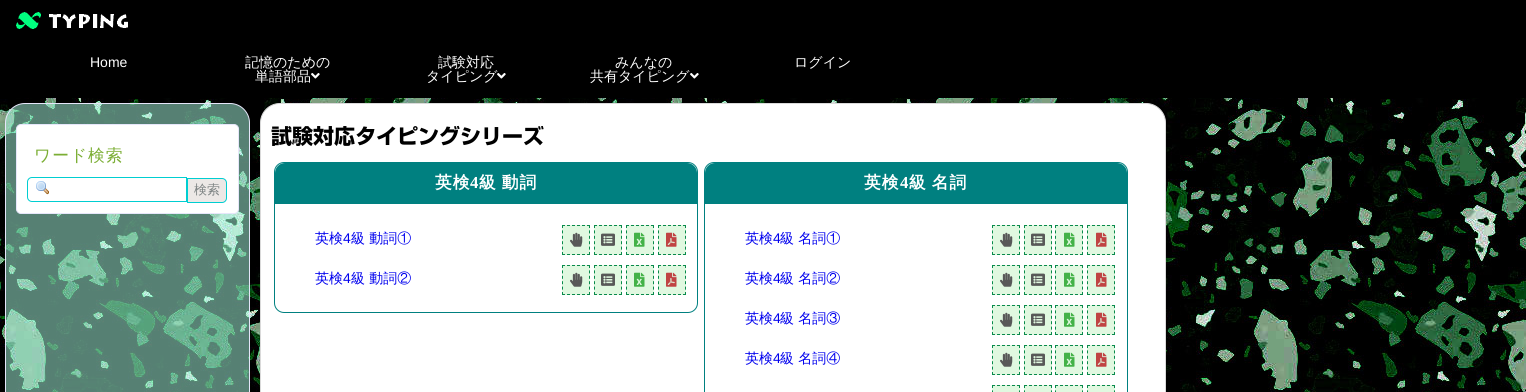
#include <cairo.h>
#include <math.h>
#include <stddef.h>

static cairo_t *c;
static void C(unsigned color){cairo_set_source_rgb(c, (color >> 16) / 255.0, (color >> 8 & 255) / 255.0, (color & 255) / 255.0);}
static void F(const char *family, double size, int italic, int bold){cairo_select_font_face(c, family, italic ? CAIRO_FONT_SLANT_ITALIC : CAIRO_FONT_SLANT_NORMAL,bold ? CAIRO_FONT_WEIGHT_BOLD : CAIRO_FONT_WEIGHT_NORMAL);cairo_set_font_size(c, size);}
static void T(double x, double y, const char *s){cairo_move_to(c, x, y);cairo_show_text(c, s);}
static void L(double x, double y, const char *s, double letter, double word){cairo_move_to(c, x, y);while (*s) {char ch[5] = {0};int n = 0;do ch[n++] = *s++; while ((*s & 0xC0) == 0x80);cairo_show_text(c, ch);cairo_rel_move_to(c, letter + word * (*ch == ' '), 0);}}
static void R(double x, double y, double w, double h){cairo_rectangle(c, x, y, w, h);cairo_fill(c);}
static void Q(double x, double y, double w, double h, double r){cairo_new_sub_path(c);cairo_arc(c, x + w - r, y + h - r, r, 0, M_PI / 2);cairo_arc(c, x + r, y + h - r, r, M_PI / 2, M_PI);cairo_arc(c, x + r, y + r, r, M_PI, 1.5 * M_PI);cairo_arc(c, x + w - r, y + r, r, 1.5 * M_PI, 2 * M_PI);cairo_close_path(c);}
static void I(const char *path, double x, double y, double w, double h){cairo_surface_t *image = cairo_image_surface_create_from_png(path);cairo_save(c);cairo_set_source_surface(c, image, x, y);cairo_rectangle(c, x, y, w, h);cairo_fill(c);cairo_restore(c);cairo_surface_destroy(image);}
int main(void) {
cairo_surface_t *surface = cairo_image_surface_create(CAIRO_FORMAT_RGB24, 1526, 392);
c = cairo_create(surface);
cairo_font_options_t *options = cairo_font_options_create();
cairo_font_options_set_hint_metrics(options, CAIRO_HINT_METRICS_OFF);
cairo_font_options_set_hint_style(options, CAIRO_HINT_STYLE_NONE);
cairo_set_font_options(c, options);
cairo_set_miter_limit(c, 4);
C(0xffffff);
cairo_paint(c);
I("1.png",0,98,1526,294);
C(0x000000);
R(0,0,1526,98);
I("2.png",16,12,112,17);
F("Liberation Sans",14,0,0);
C(0xffffff);
T(90,67,"Home");
F("WenQuanYi Zen Hei Medium",14,0,0);
T(245,67,"記憶のための");
T(255,81,"単語部品");
I("3.png",311,73,9,6);
T(438,67,"試験対応");
T(426,81,"タイピング");
I("3.png",497,73,9,6);
T(615,67,"みんなの");
T(590,81,"共有タイピング");
I("3.png",690,73,9,6);
T(794,67,"ログイン");
cairo_set_source_rgba(c,0.678,1,0.902,0.5);
Q(5.5,103.5,244,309,19.5);
cairo_fill_preserve(c);
C(0xe6e6fa);
cairo_set_line_width(c,1);
cairo_stroke(c);
C(0xffffff);
Q(16.5,124.5,222,89,4.5);
cairo_fill_preserve(c);
C(0xe6e6fa);
cairo_stroke(c);
F("WenQuanYi Zen Hei Medium",16.75,0,0);
C(0x7bae34);
L(34,161,"ワード検索",1,0);
I("4.png",36,181,13,14);
cairo_new_path(c);
cairo_move_to(c,32,177.5);
cairo_line_to(c,186.5,177.5);
cairo_line_to(c,186.5,201.5);
cairo_line_to(c,32,201.5);
cairo_curve_to(c,29.5,201.5,27.5,199.5,27.5,197);
cairo_line_to(c,27.5,182);
cairo_curve_to(c,27.5,179.5,29.5,177.5,32,177.5);
cairo_close_path(c);
C(0x00ced1);
cairo_stroke(c);
C(0xece8e6);
cairo_new_path(c);
cairo_move_to(c,187.5,178.5);
cairo_line_to(c,222,178.5);
cairo_curve_to(c,224.5,178.5,226.5,180.5,226.5,183);
cairo_line_to(c,226.5,198);
cairo_curve_to(c,226.5,200.5,224.5,202.5,222,202.5);
cairo_line_to(c,187.5,202.5);
cairo_close_path(c);
cairo_fill_preserve(c);
C(0x00ced1);
cairo_stroke(c);
F("WenQuanYi Zen Hei Medium",13,0,0);
C(0x7d8383);
T(194,194,"検索");
C(0xffffff);
Q(260.5,103.5,905,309,19.5);
cairo_fill_preserve(c);
C(0xdadada);
cairo_stroke(c);
F("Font",21,0,1);
C(0x000000);
T(271,144,"試験対応タイピングシリーズ");
Q(274.5,162.5,423,150,9.5);
C(0x008080);
cairo_stroke(c);
cairo_new_path(c);
cairo_move_to(c,285,163);
cairo_line_to(c,687,163);
cairo_curve_to(c,692.5,163,697,167.5,697,173);
cairo_line_to(c,697,204);
cairo_line_to(c,275,204);
cairo_line_to(c,275,173);
cairo_curve_to(c,275,167.5,279.5,163,285,163);
cairo_close_path(c);
cairo_fill(c);
F("WenQuanYi Zen Hei",16.75,0,1);
C(0xffffff);
L(435,188,"英検",1,0);
F("Liberation Serif",16.75,0,1);
L(470,188,"4",1,0);
F("WenQuanYi Zen Hei",16.75,0,1);
L(479,188,"級 動詞",1,-1);
F("WenQuanYi Zen Hei Medium",14,0,0);
C(0x0000ee);
T(315,243,"英検");
F("Liberation Sans",14,0,0);
T(343,243,"4");
F("WenQuanYi Zen Hei Medium",14,0,0);
T(351,243,"級 動詞①");
C(0xe0f8e0);
R(562,225,28,30);
cairo_new_path(c);
cairo_move_to(c,562,225.5);
cairo_line_to(c,590,225.5);
C(0x088a4b);
cairo_set_dash(c,(double[]){3,2},2,0);
cairo_stroke(c);
cairo_new_path(c);
cairo_move_to(c,589.5,225);
cairo_line_to(c,589.5,255);
cairo_set_dash(c,(double[]){3,2.4},2,0);
cairo_stroke(c);
cairo_new_path(c);
cairo_move_to(c,562,254.5);
cairo_line_to(c,590,254.5);
cairo_set_dash(c,(double[]){3,2},2,0);
cairo_stroke(c);
cairo_new_path(c);
cairo_move_to(c,562.5,225);
cairo_line_to(c,562.5,255);
cairo_set_dash(c,(double[]){3,2.4},2,0);
cairo_stroke(c);
I("5.png",570,232,13,15);
C(0xe0f8e0);
R(594,225,28,30);
cairo_new_path(c);
cairo_move_to(c,594,225.5);
cairo_line_to(c,622,225.5);
C(0x088a4b);
cairo_set_dash(c,(double[]){3,2},2,0);
cairo_stroke(c);
cairo_new_path(c);
cairo_move_to(c,621.5,225);
cairo_line_to(c,621.5,255);
cairo_set_dash(c,(double[]){3,2.4},2,0);
cairo_stroke(c);
cairo_new_path(c);
cairo_move_to(c,594,254.5);
cairo_line_to(c,622,254.5);
cairo_set_dash(c,(double[]){3,2},2,0);
cairo_stroke(c);
cairo_new_path(c);
cairo_move_to(c,594.5,225);
cairo_line_to(c,594.5,255);
cairo_set_dash(c,(double[]){3,2.4},2,0);
cairo_stroke(c);
I("6.png",601,233,14,13);
C(0xe0f8e0);
R(626,225,28,30);
cairo_new_path(c);
cairo_move_to(c,626,225.5);
cairo_line_to(c,654,225.5);
C(0x088a4b);
cairo_set_dash(c,(double[]){3,2},2,0);
cairo_stroke(c);
cairo_new_path(c);
cairo_move_to(c,653.5,225);
cairo_line_to(c,653.5,255);
cairo_set_dash(c,(double[]){3,2.4},2,0);
cairo_stroke(c);
cairo_new_path(c);
cairo_move_to(c,626,254.5);
cairo_line_to(c,654,254.5);
cairo_set_dash(c,(double[]){3,2},2,0);
cairo_stroke(c);
cairo_new_path(c);
cairo_move_to(c,626.5,225);
cairo_line_to(c,626.5,255);
cairo_set_dash(c,(double[]){3,2.4},2,0);
cairo_stroke(c);
I("7.png",634,232,11,15);
C(0xe0f8e0);
R(658,225,28,30);
cairo_new_path(c);
cairo_move_to(c,658,225.5);
cairo_line_to(c,686,225.5);
C(0x088a4b);
cairo_set_dash(c,(double[]){3,2},2,0);
cairo_stroke(c);
cairo_new_path(c);
cairo_move_to(c,685.5,225);
cairo_line_to(c,685.5,255);
cairo_set_dash(c,(double[]){3,2.4},2,0);
cairo_stroke(c);
cairo_new_path(c);
cairo_move_to(c,658,254.5);
cairo_line_to(c,686,254.5);
cairo_set_dash(c,(double[]){3,2},2,0);
cairo_stroke(c);
cairo_new_path(c);
cairo_move_to(c,658.5,225);
cairo_line_to(c,658.5,255);
cairo_set_dash(c,(double[]){3,2.4},2,0);
cairo_stroke(c);
I("8.png",666,232,11,15);
C(0x0000ee);
T(315,283,"英検");
F("Liberation Sans",14,0,0);
T(343,283,"4");
F("WenQuanYi Zen Hei Medium",14,0,0);
T(351,283,"級 動詞②");
C(0xe0f8e0);
R(562,265,28,30);
cairo_new_path(c);
cairo_move_to(c,562,265.5);
cairo_line_to(c,590,265.5);
C(0x088a4b);
cairo_set_dash(c,(double[]){3,2},2,0);
cairo_stroke(c);
cairo_new_path(c);
cairo_move_to(c,589.5,265);
cairo_line_to(c,589.5,295);
cairo_set_dash(c,(double[]){3,2.4},2,0);
cairo_stroke(c);
cairo_new_path(c);
cairo_move_to(c,562,294.5);
cairo_line_to(c,590,294.5);
cairo_set_dash(c,(double[]){3,2},2,0);
cairo_stroke(c);
cairo_new_path(c);
cairo_move_to(c,562.5,265);
cairo_line_to(c,562.5,295);
cairo_set_dash(c,(double[]){3,2.4},2,0);
cairo_stroke(c);
I("5.png",570,272,13,15);
C(0xe0f8e0);
R(594,265,28,30);
cairo_new_path(c);
cairo_move_to(c,594,265.5);
cairo_line_to(c,622,265.5);
C(0x088a4b);
cairo_set_dash(c,(double[]){3,2},2,0);
cairo_stroke(c);
cairo_new_path(c);
cairo_move_to(c,621.5,265);
cairo_line_to(c,621.5,295);
cairo_set_dash(c,(double[]){3,2.4},2,0);
cairo_stroke(c);
cairo_new_path(c);
cairo_move_to(c,594,294.5);
cairo_line_to(c,622,294.5);
cairo_set_dash(c,(double[]){3,2},2,0);
cairo_stroke(c);
cairo_new_path(c);
cairo_move_to(c,594.5,265);
cairo_line_to(c,594.5,295);
cairo_set_dash(c,(double[]){3,2.4},2,0);
cairo_stroke(c);
I("6.png",601,273,14,13);
C(0xe0f8e0);
R(626,265,28,30);
cairo_new_path(c);
cairo_move_to(c,626,265.5);
cairo_line_to(c,654,265.5);
C(0x088a4b);
cairo_set_dash(c,(double[]){3,2},2,0);
cairo_stroke(c);
cairo_new_path(c);
cairo_move_to(c,653.5,265);
cairo_line_to(c,653.5,295);
cairo_set_dash(c,(double[]){3,2.4},2,0);
cairo_stroke(c);
cairo_new_path(c);
cairo_move_to(c,626,294.5);
cairo_line_to(c,654,294.5);
cairo_set_dash(c,(double[]){3,2},2,0);
cairo_stroke(c);
cairo_new_path(c);
cairo_move_to(c,626.5,265);
cairo_line_to(c,626.5,295);
cairo_set_dash(c,(double[]){3,2.4},2,0);
cairo_stroke(c);
I("7.png",634,272,11,15);
C(0xe0f8e0);
R(658,265,28,30);
cairo_new_path(c);
cairo_move_to(c,658,265.5);
cairo_line_to(c,686,265.5);
C(0x088a4b);
cairo_set_dash(c,(double[]){3,2},2,0);
cairo_stroke(c);
cairo_new_path(c);
cairo_move_to(c,685.5,265);
cairo_line_to(c,685.5,295);
cairo_set_dash(c,(double[]){3,2.4},2,0);
cairo_stroke(c);
cairo_new_path(c);
cairo_move_to(c,658,294.5);
cairo_line_to(c,686,294.5);
cairo_set_dash(c,(double[]){3,2},2,0);
cairo_stroke(c);
cairo_new_path(c);
cairo_move_to(c,658.5,265);
cairo_line_to(c,658.5,295);
cairo_set_dash(c,(double[]){3,2.4},2,0);
cairo_stroke(c);
I("8.png",666,272,11,15);
Q(704.5,162.5,423,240,9.5);
C(0x008080);
cairo_set_dash(c,NULL,0,0);
cairo_stroke(c);
cairo_new_path(c);
cairo_move_to(c,715,163);
cairo_line_to(c,1117,163);
cairo_curve_to(c,1122.5,163,1127,167.5,1127,173);
cairo_line_to(c,1127,204);
cairo_line_to(c,705,204);
cairo_line_to(c,705,173);
cairo_curve_to(c,705,167.5,709.5,163,715,163);
cairo_close_path(c);
cairo_fill(c);
F("WenQuanYi Zen Hei",16.75,0,1);
C(0xffffff);
L(864,188,"英検",1,0);
F("Liberation Serif",16.75,0,1);
L(900,188,"4",1,0);
F("WenQuanYi Zen Hei",16.75,0,1);
L(909,188,"級 名詞",1,-1);
F("WenQuanYi Zen Hei Medium",14,0,0);
C(0x0000ee);
T(745,243,"英検");
F("Liberation Sans",14,0,0);
T(773,243,"4");
F("WenQuanYi Zen Hei Medium",14,0,0);
T(780,243,"級 名詞①");
C(0xe0f8e0);
R(992,225,28,30);
cairo_new_path(c);
cairo_move_to(c,992,225.5);
cairo_line_to(c,1020,225.5);
C(0x088a4b);
cairo_set_dash(c,(double[]){3,2},2,0);
cairo_stroke(c);
cairo_new_path(c);
cairo_move_to(c,1019.5,225);
cairo_line_to(c,1019.5,255);
cairo_set_dash(c,(double[]){3,2.4},2,0);
cairo_stroke(c);
cairo_new_path(c);
cairo_move_to(c,992,254.5);
cairo_line_to(c,1020,254.5);
cairo_set_dash(c,(double[]){3,2},2,0);
cairo_stroke(c);
cairo_new_path(c);
cairo_move_to(c,992.5,225);
cairo_line_to(c,992.5,255);
cairo_set_dash(c,(double[]){3,2.4},2,0);
cairo_stroke(c);
I("5.png",1000,232,13,15);
C(0xe0f8e0);
R(1024,225,28,30);
cairo_new_path(c);
cairo_move_to(c,1024,225.5);
cairo_line_to(c,1052,225.5);
C(0x088a4b);
cairo_set_dash(c,(double[]){3,2},2,0);
cairo_stroke(c);
cairo_new_path(c);
cairo_move_to(c,1051.5,225);
cairo_line_to(c,1051.5,255);
cairo_set_dash(c,(double[]){3,2.4},2,0);
cairo_stroke(c);
cairo_new_path(c);
cairo_move_to(c,1024,254.5);
cairo_line_to(c,1052,254.5);
cairo_set_dash(c,(double[]){3,2},2,0);
cairo_stroke(c);
cairo_new_path(c);
cairo_move_to(c,1024.5,225);
cairo_line_to(c,1024.5,255);
cairo_set_dash(c,(double[]){3,2.4},2,0);
cairo_stroke(c);
I("6.png",1031,233,14,13);
C(0xe0f8e0);
R(1055,225,28,30);
cairo_new_path(c);
cairo_move_to(c,1055,225.5);
cairo_line_to(c,1083,225.5);
C(0x088a4b);
cairo_set_dash(c,(double[]){3,2},2,0);
cairo_stroke(c);
cairo_new_path(c);
cairo_move_to(c,1082.5,225);
cairo_line_to(c,1082.5,255);
cairo_set_dash(c,(double[]){3,2.4},2,0);
cairo_stroke(c);
cairo_new_path(c);
cairo_move_to(c,1055,254.5);
cairo_line_to(c,1083,254.5);
cairo_set_dash(c,(double[]){3,2},2,0);
cairo_stroke(c);
cairo_new_path(c);
cairo_move_to(c,1055.5,225);
cairo_line_to(c,1055.5,255);
cairo_set_dash(c,(double[]){3,2.4},2,0);
cairo_stroke(c);
I("7.png",1064,232,11,15);
C(0xe0f8e0);
R(1087,225,28,30);
cairo_new_path(c);
cairo_move_to(c,1087,225.5);
cairo_line_to(c,1115,225.5);
C(0x088a4b);
cairo_set_dash(c,(double[]){3,2},2,0);
cairo_stroke(c);
cairo_new_path(c);
cairo_move_to(c,1114.5,225);
cairo_line_to(c,1114.5,255);
cairo_set_dash(c,(double[]){3,2.4},2,0);
cairo_stroke(c);
cairo_new_path(c);
cairo_move_to(c,1087,254.5);
cairo_line_to(c,1115,254.5);
cairo_set_dash(c,(double[]){3,2},2,0);
cairo_stroke(c);
cairo_new_path(c);
cairo_move_to(c,1087.5,225);
cairo_line_to(c,1087.5,255);
cairo_set_dash(c,(double[]){3,2.4},2,0);
cairo_stroke(c);
I("8.png",1096,232,11,15);
C(0x0000ee);
T(745,283,"英検");
F("Liberation Sans",14,0,0);
T(773,283,"4");
F("WenQuanYi Zen Hei Medium",14,0,0);
T(780,283,"級 名詞②");
C(0xe0f8e0);
R(992,265,28,30);
cairo_new_path(c);
cairo_move_to(c,992,265.5);
cairo_line_to(c,1020,265.5);
C(0x088a4b);
cairo_set_dash(c,(double[]){3,2},2,0);
cairo_stroke(c);
cairo_new_path(c);
cairo_move_to(c,1019.5,265);
cairo_line_to(c,1019.5,295);
cairo_set_dash(c,(double[]){3,2.4},2,0);
cairo_stroke(c);
cairo_new_path(c);
cairo_move_to(c,992,294.5);
cairo_line_to(c,1020,294.5);
cairo_set_dash(c,(double[]){3,2},2,0);
cairo_stroke(c);
cairo_new_path(c);
cairo_move_to(c,992.5,265);
cairo_line_to(c,992.5,295);
cairo_set_dash(c,(double[]){3,2.4},2,0);
cairo_stroke(c);
I("5.png",1000,272,13,15);
C(0xe0f8e0);
R(1024,265,28,30);
cairo_new_path(c);
cairo_move_to(c,1024,265.5);
cairo_line_to(c,1052,265.5);
C(0x088a4b);
cairo_set_dash(c,(double[]){3,2},2,0);
cairo_stroke(c);
cairo_new_path(c);
cairo_move_to(c,1051.5,265);
cairo_line_to(c,1051.5,295);
cairo_set_dash(c,(double[]){3,2.4},2,0);
cairo_stroke(c);
cairo_new_path(c);
cairo_move_to(c,1024,294.5);
cairo_line_to(c,1052,294.5);
cairo_set_dash(c,(double[]){3,2},2,0);
cairo_stroke(c);
cairo_new_path(c);
cairo_move_to(c,1024.5,265);
cairo_line_to(c,1024.5,295);
cairo_set_dash(c,(double[]){3,2.4},2,0);
cairo_stroke(c);
I("6.png",1031,273,14,13);
C(0xe0f8e0);
R(1055,265,28,30);
cairo_new_path(c);
cairo_move_to(c,1055,265.5);
cairo_line_to(c,1083,265.5);
C(0x088a4b);
cairo_set_dash(c,(double[]){3,2},2,0);
cairo_stroke(c);
cairo_new_path(c);
cairo_move_to(c,1082.5,265);
cairo_line_to(c,1082.5,295);
cairo_set_dash(c,(double[]){3,2.4},2,0);
cairo_stroke(c);
cairo_new_path(c);
cairo_move_to(c,1055,294.5);
cairo_line_to(c,1083,294.5);
cairo_set_dash(c,(double[]){3,2},2,0);
cairo_stroke(c);
cairo_new_path(c);
cairo_move_to(c,1055.5,265);
cairo_line_to(c,1055.5,295);
cairo_set_dash(c,(double[]){3,2.4},2,0);
cairo_stroke(c);
I("7.png",1064,272,11,15);
C(0xe0f8e0);
R(1087,265,28,30);
cairo_new_path(c);
cairo_move_to(c,1087,265.5);
cairo_line_to(c,1115,265.5);
C(0x088a4b);
cairo_set_dash(c,(double[]){3,2},2,0);
cairo_stroke(c);
cairo_new_path(c);
cairo_move_to(c,1114.5,265);
cairo_line_to(c,1114.5,295);
cairo_set_dash(c,(double[]){3,2.4},2,0);
cairo_stroke(c);
cairo_new_path(c);
cairo_move_to(c,1087,294.5);
cairo_line_to(c,1115,294.5);
cairo_set_dash(c,(double[]){3,2},2,0);
cairo_stroke(c);
cairo_new_path(c);
cairo_move_to(c,1087.5,265);
cairo_line_to(c,1087.5,295);
cairo_set_dash(c,(double[]){3,2.4},2,0);
cairo_stroke(c);
I("8.png",1096,272,11,15);
C(0x0000ee);
T(745,323,"英検");
F("Liberation Sans",14,0,0);
T(773,323,"4");
F("WenQuanYi Zen Hei Medium",14,0,0);
T(780,323,"級 名詞③");
C(0xe0f8e0);
R(992,305,28,30);
cairo_new_path(c);
cairo_move_to(c,992,305.5);
cairo_line_to(c,1020,305.5);
C(0x088a4b);
cairo_set_dash(c,(double[]){3,2},2,0);
cairo_stroke(c);
cairo_new_path(c);
cairo_move_to(c,1019.5,305);
cairo_line_to(c,1019.5,335);
cairo_set_dash(c,(double[]){3,2.4},2,0);
cairo_stroke(c);
cairo_new_path(c);
cairo_move_to(c,992,334.5);
cairo_line_to(c,1020,334.5);
cairo_set_dash(c,(double[]){3,2},2,0);
cairo_stroke(c);
cairo_new_path(c);
cairo_move_to(c,992.5,305);
cairo_line_to(c,992.5,335);
cairo_set_dash(c,(double[]){3,2.4},2,0);
cairo_stroke(c);
I("5.png",1000,312,13,15);
C(0xe0f8e0);
R(1024,305,28,30);
cairo_new_path(c);
cairo_move_to(c,1024,305.5);
cairo_line_to(c,1052,305.5);
C(0x088a4b);
cairo_set_dash(c,(double[]){3,2},2,0);
cairo_stroke(c);
cairo_new_path(c);
cairo_move_to(c,1051.5,305);
cairo_line_to(c,1051.5,335);
cairo_set_dash(c,(double[]){3,2.4},2,0);
cairo_stroke(c);
cairo_new_path(c);
cairo_move_to(c,1024,334.5);
cairo_line_to(c,1052,334.5);
cairo_set_dash(c,(double[]){3,2},2,0);
cairo_stroke(c);
cairo_new_path(c);
cairo_move_to(c,1024.5,305);
cairo_line_to(c,1024.5,335);
cairo_set_dash(c,(double[]){3,2.4},2,0);
cairo_stroke(c);
I("6.png",1031,313,14,13);
C(0xe0f8e0);
R(1055,305,28,30);
cairo_new_path(c);
cairo_move_to(c,1055,305.5);
cairo_line_to(c,1083,305.5);
C(0x088a4b);
cairo_set_dash(c,(double[]){3,2},2,0);
cairo_stroke(c);
cairo_new_path(c);
cairo_move_to(c,1082.5,305);
cairo_line_to(c,1082.5,335);
cairo_set_dash(c,(double[]){3,2.4},2,0);
cairo_stroke(c);
cairo_new_path(c);
cairo_move_to(c,1055,334.5);
cairo_line_to(c,1083,334.5);
cairo_set_dash(c,(double[]){3,2},2,0);
cairo_stroke(c);
cairo_new_path(c);
cairo_move_to(c,1055.5,305);
cairo_line_to(c,1055.5,335);
cairo_set_dash(c,(double[]){3,2.4},2,0);
cairo_stroke(c);
I("7.png",1064,312,11,15);
C(0xe0f8e0);
R(1087,305,28,30);
cairo_new_path(c);
cairo_move_to(c,1087,305.5);
cairo_line_to(c,1115,305.5);
C(0x088a4b);
cairo_set_dash(c,(double[]){3,2},2,0);
cairo_stroke(c);
cairo_new_path(c);
cairo_move_to(c,1114.5,305);
cairo_line_to(c,1114.5,335);
cairo_set_dash(c,(double[]){3,2.4},2,0);
cairo_stroke(c);
cairo_new_path(c);
cairo_move_to(c,1087,334.5);
cairo_line_to(c,1115,334.5);
cairo_set_dash(c,(double[]){3,2},2,0);
cairo_stroke(c);
cairo_new_path(c);
cairo_move_to(c,1087.5,305);
cairo_line_to(c,1087.5,335);
cairo_set_dash(c,(double[]){3,2.4},2,0);
cairo_stroke(c);
I("8.png",1096,312,11,15);
C(0x0000ee);
T(745,363,"英検");
F("Liberation Sans",14,0,0);
T(773,363,"4");
F("WenQuanYi Zen Hei Medium",14,0,0);
T(780,363,"級 名詞④");
C(0xe0f8e0);
R(992,345,28,30);
cairo_new_path(c);
cairo_move_to(c,992,345.5);
cairo_line_to(c,1020,345.5);
C(0x088a4b);
cairo_set_dash(c,(double[]){3,2},2,0);
cairo_stroke(c);
cairo_new_path(c);
cairo_move_to(c,1019.5,345);
cairo_line_to(c,1019.5,375);
cairo_set_dash(c,(double[]){3,2.4},2,0);
cairo_stroke(c);
cairo_new_path(c);
cairo_move_to(c,992,374.5);
cairo_line_to(c,1020,374.5);
cairo_set_dash(c,(double[]){3,2},2,0);
cairo_stroke(c);
cairo_new_path(c);
cairo_move_to(c,992.5,345);
cairo_line_to(c,992.5,375);
cairo_set_dash(c,(double[]){3,2.4},2,0);
cairo_stroke(c);
I("5.png",1000,352,13,15);
C(0xe0f8e0);
R(1024,345,28,30);
cairo_new_path(c);
cairo_move_to(c,1024,345.5);
cairo_line_to(c,1052,345.5);
C(0x088a4b);
cairo_set_dash(c,(double[]){3,2},2,0);
cairo_stroke(c);
cairo_new_path(c);
cairo_move_to(c,1051.5,345);
cairo_line_to(c,1051.5,375);
cairo_set_dash(c,(double[]){3,2.4},2,0);
cairo_stroke(c);
cairo_new_path(c);
cairo_move_to(c,1024,374.5);
cairo_line_to(c,1052,374.5);
cairo_set_dash(c,(double[]){3,2},2,0);
cairo_stroke(c);
cairo_new_path(c);
cairo_move_to(c,1024.5,345);
cairo_line_to(c,1024.5,375);
cairo_set_dash(c,(double[]){3,2.4},2,0);
cairo_stroke(c);
I("6.png",1031,353,14,13);
C(0xe0f8e0);
R(1055,345,28,30);
cairo_new_path(c);
cairo_move_to(c,1055,345.5);
cairo_line_to(c,1083,345.5);
C(0x088a4b);
cairo_set_dash(c,(double[]){3,2},2,0);
cairo_stroke(c);
cairo_new_path(c);
cairo_move_to(c,1082.5,345);
cairo_line_to(c,1082.5,375);
cairo_set_dash(c,(double[]){3,2.4},2,0);
cairo_stroke(c);
cairo_new_path(c);
cairo_move_to(c,1055,374.5);
cairo_line_to(c,1083,374.5);
cairo_set_dash(c,(double[]){3,2},2,0);
cairo_stroke(c);
cairo_new_path(c);
cairo_move_to(c,1055.5,345);
cairo_line_to(c,1055.5,375);
cairo_set_dash(c,(double[]){3,2.4},2,0);
cairo_stroke(c);
I("7.png",1064,352,11,15);
C(0xe0f8e0);
R(1087,345,28,30);
cairo_new_path(c);
cairo_move_to(c,1087,345.5);
cairo_line_to(c,1115,345.5);
C(0x088a4b);
cairo_set_dash(c,(double[]){3,2},2,0);
cairo_stroke(c);
cairo_new_path(c);
cairo_move_to(c,1114.5,345);
cairo_line_to(c,1114.5,375);
cairo_set_dash(c,(double[]){3,2.4},2,0);
cairo_stroke(c);
cairo_new_path(c);
cairo_move_to(c,1087,374.5);
cairo_line_to(c,1115,374.5);
cairo_set_dash(c,(double[]){3,2},2,0);
cairo_stroke(c);
cairo_new_path(c);
cairo_move_to(c,1087.5,345);
cairo_line_to(c,1087.5,375);
cairo_set_dash(c,(double[]){3,2.4},2,0);
cairo_stroke(c);
I("8.png",1096,352,11,15);
C(0xe0f8e0);
R(992,385,28,7);
cairo_new_path(c);
cairo_move_to(c,992,385.5);
cairo_line_to(c,1020,385.5);
C(0x088a4b);
cairo_set_dash(c,(double[]){3,2},2,0);
cairo_stroke(c);
cairo_new_path(c);
cairo_move_to(c,1019.5,385);
cairo_line_to(c,1019.5,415);
cairo_move_to(c,992.5,385);
cairo_line_to(c,992.5,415);
cairo_set_dash(c,(double[]){3,2.4},2,0);
cairo_stroke(c);
C(0xe0f8e0);
R(1024,385,28,7);
cairo_new_path(c);
cairo_move_to(c,1024,385.5);
cairo_line_to(c,1052,385.5);
C(0x088a4b);
cairo_set_dash(c,(double[]){3,2},2,0);
cairo_stroke(c);
cairo_new_path(c);
cairo_move_to(c,1051.5,385);
cairo_line_to(c,1051.5,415);
cairo_move_to(c,1024.5,385);
cairo_line_to(c,1024.5,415);
cairo_set_dash(c,(double[]){3,2.4},2,0);
cairo_stroke(c);
C(0xe0f8e0);
R(1055,385,28,7);
cairo_new_path(c);
cairo_move_to(c,1055,385.5);
cairo_line_to(c,1083,385.5);
C(0x088a4b);
cairo_set_dash(c,(double[]){3,2},2,0);
cairo_stroke(c);
cairo_new_path(c);
cairo_move_to(c,1082.5,385);
cairo_line_to(c,1082.5,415);
cairo_move_to(c,1055.5,385);
cairo_line_to(c,1055.5,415);
cairo_set_dash(c,(double[]){3,2.4},2,0);
cairo_stroke(c);
C(0xe0f8e0);
R(1087,385,28,7);
cairo_new_path(c);
cairo_move_to(c,1087,385.5);
cairo_line_to(c,1115,385.5);
C(0x088a4b);
cairo_set_dash(c,(double[]){3,2},2,0);
cairo_stroke(c);
cairo_new_path(c);
cairo_move_to(c,1114.5,385);
cairo_line_to(c,1114.5,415);
cairo_move_to(c,1087.5,385);
cairo_line_to(c,1087.5,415);
cairo_set_dash(c,(double[]){3,2.4},2,0);
cairo_stroke(c);
cairo_surface_write_to_png(surface, "o.png");
cairo_font_options_destroy(options);
cairo_destroy(c);
cairo_surface_destroy(surface);
return 0;
}
